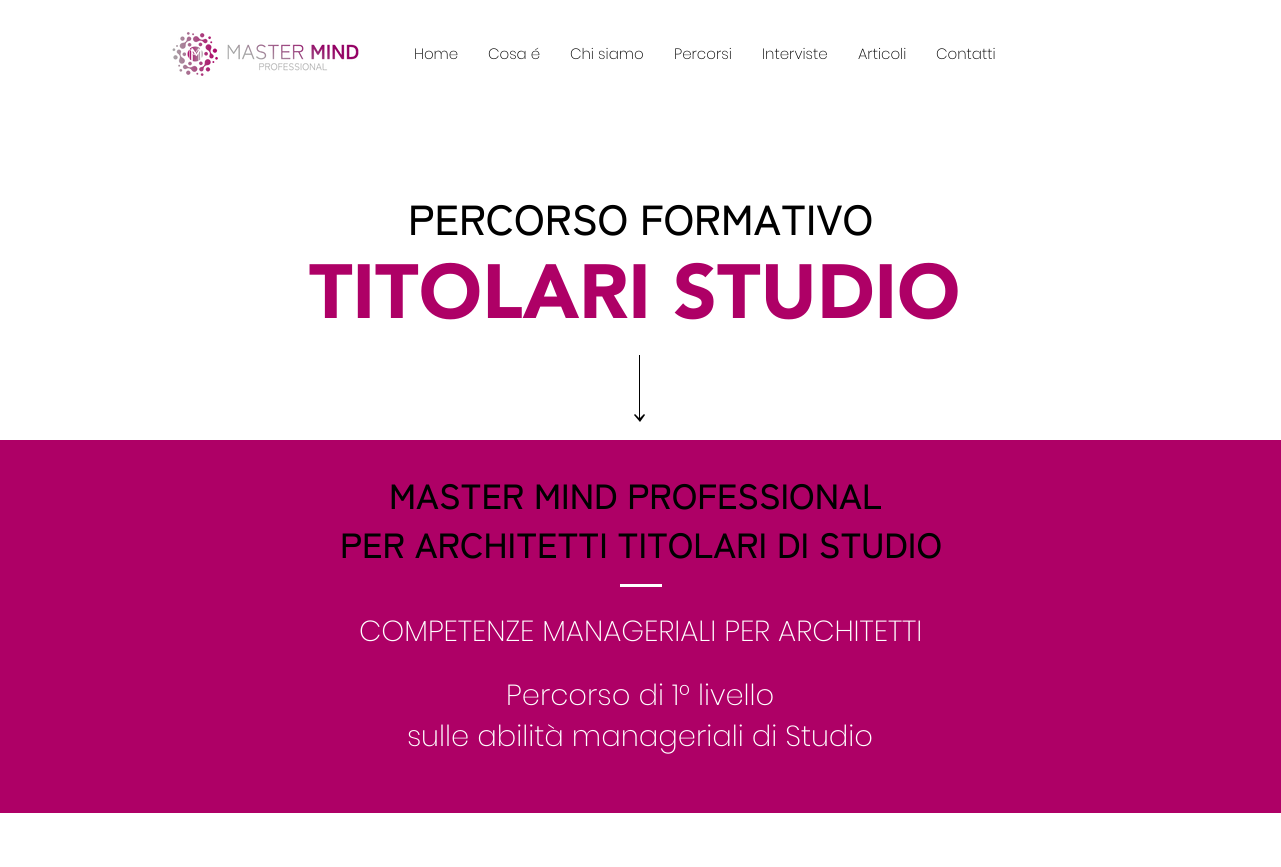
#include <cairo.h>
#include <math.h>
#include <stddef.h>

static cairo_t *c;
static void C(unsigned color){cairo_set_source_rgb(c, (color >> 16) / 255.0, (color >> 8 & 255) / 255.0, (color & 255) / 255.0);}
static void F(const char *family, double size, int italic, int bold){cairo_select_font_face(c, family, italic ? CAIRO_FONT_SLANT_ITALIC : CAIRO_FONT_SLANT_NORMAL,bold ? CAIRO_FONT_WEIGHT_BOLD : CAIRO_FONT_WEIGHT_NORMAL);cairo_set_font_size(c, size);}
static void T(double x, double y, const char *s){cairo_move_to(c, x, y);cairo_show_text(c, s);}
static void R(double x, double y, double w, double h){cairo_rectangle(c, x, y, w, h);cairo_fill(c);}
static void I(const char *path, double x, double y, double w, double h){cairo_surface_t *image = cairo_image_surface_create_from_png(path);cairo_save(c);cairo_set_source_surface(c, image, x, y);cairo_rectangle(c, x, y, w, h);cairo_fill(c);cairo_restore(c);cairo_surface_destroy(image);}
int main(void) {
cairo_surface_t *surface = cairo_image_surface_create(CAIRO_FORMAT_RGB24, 1281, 867);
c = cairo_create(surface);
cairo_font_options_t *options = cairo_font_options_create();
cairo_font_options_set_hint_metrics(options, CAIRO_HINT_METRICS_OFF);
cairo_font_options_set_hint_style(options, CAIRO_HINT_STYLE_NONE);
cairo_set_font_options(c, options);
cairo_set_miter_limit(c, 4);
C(0xffffff);
cairo_paint(c);
I("1.png",172,32,187,44);
F("Poppins ExtraLight",15,0,0);
C(0x000000);
T(414,59,"Home");
T(488,59,"Cosa é");
T(570,59,"Chi siamo");
T(674,59,"Percorsi");
T(762,59,"Interviste");
T(858,59,"Articoli");
T(936,59,"Contatti");
F("Zen Kaku Gothic New Medium",42,0,0);
T(408,235,"PERCORSO FORMATIVO");
F("Avenir Black",76,0,0);
C(0xae0066);
T(309,318,"TITOLARI STUDIO");
C(0x000000);
cairo_new_path(c);
cairo_move_to(c,634,415);
cairo_line_to(c,640,422);
cairo_line_to(c,645,415);
cairo_line_to(c,644,414);
cairo_line_to(c,640,418);
cairo_line_to(c,640,355);
cairo_line_to(c,639,355);
cairo_line_to(c,639,418);
cairo_line_to(c,635,414);
cairo_close_path(c);
cairo_fill(c);
C(0xae0066);
R(0,440,1281,373);
F("Zen Kaku Gothic New Medium",35,0,0);
C(0x000000);
T(389,509,"MASTER MIND PROFESSIONAL");
T(340,558,"PER ARCHITETTI TITOLARI DI STUDIO");
C(0xffffff);
R(620,584,42,3);
F("Poppins ExtraLight",29,0,0);
T(359,641,"COMPETENZE MANAGERIALI PER ARCHITETTI");
T(506,705,"Percorso di 1° livello");
T(407,746,"sulle abilità manageriali di Studio");
cairo_surface_write_to_png(surface, "o.png");
cairo_font_options_destroy(options);
cairo_destroy(c);
cairo_surface_destroy(surface);
return 0;
}
